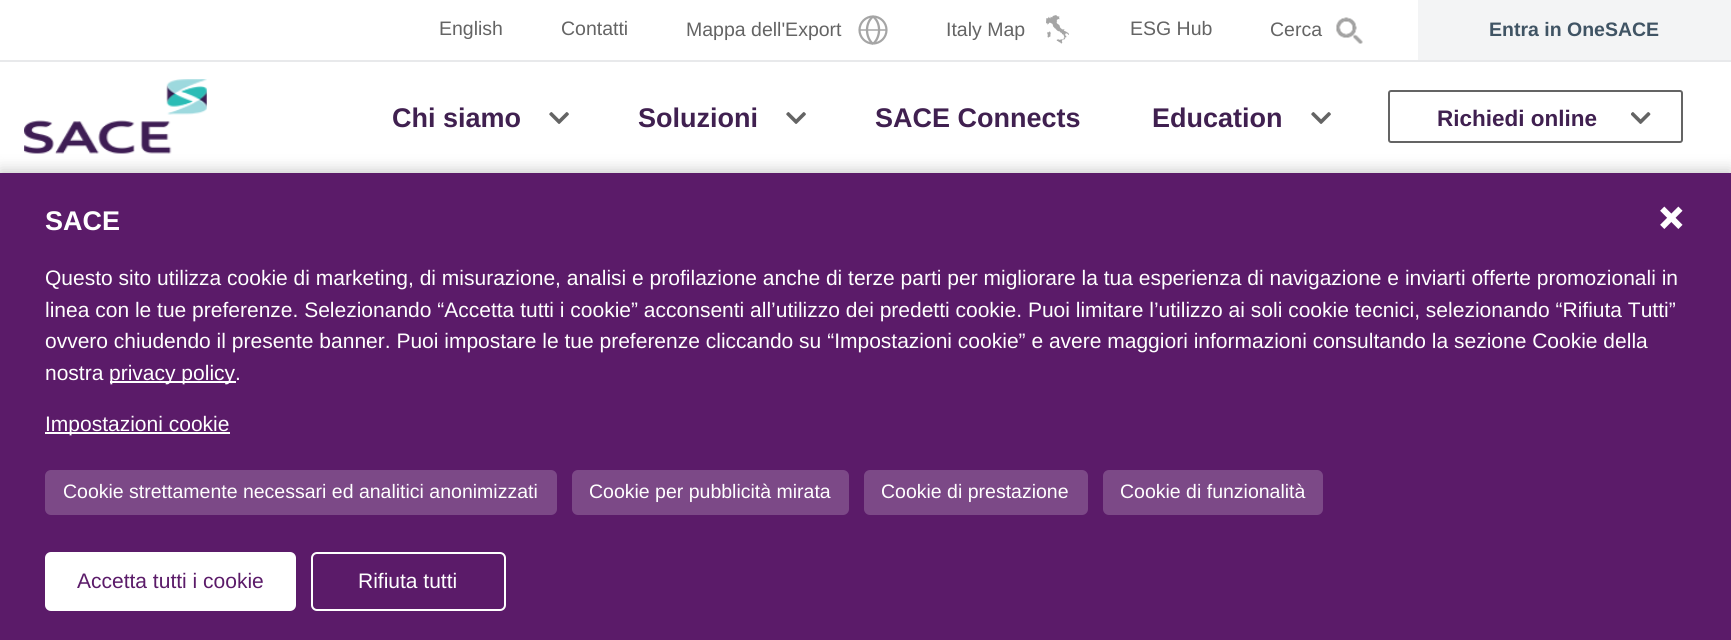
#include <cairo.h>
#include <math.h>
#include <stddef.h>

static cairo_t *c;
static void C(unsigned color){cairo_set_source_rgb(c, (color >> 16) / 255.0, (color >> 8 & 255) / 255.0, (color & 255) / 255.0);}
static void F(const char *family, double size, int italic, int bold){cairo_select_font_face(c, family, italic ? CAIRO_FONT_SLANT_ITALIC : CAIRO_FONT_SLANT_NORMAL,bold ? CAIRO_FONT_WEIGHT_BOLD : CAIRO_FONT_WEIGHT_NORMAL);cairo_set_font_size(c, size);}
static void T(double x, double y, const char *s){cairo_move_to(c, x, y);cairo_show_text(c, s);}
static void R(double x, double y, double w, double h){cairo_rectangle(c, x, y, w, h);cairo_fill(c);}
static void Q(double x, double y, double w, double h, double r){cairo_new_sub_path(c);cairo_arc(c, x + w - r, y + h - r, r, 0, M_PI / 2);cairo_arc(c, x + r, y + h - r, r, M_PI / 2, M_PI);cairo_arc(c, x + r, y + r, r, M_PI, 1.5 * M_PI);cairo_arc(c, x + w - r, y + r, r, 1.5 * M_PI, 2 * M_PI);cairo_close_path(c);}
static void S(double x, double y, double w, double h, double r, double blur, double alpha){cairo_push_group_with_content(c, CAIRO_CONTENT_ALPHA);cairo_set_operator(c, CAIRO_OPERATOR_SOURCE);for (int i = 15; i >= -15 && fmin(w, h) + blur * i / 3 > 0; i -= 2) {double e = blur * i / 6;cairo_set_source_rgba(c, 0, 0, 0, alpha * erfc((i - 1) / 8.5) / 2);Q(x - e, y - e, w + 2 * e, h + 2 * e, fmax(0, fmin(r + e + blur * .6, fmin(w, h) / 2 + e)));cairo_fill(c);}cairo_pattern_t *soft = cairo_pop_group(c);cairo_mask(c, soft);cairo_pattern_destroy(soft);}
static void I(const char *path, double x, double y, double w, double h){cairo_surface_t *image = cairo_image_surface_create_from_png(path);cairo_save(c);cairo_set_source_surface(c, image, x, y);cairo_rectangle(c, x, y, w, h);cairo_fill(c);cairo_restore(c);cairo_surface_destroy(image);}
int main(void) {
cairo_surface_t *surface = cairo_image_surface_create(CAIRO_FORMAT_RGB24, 1731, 640);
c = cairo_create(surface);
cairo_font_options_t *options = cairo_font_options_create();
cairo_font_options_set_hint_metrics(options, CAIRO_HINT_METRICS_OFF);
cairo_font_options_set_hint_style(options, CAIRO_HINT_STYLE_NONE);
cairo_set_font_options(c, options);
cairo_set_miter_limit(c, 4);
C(0xffffff);
cairo_paint(c);
C(0xe8e9eb);
R(0,60,1731,2);
F("Liberation Sans",19.5,0,0);
C(0x646464);
T(439,35,"English");
T(561,35,"Contatti");
T(686,36,"Mappa dell'Export");
cairo_new_path(c);
cairo_arc(c,873,30,13.5,0,2 * M_PI);
C(0xa5a5a5);
cairo_set_line_width(c,2.2);
cairo_stroke(c);
cairo_new_path(c);
cairo_move_to(c,873,16.5);
cairo_curve_to(c,865,23,865,37,873,44);
cairo_move_to(c,873.5,43.5);
cairo_curve_to(c,881,36.5,881,22.5,873,16.5);
cairo_set_line_width(c,2.3);
cairo_stroke(c);
cairo_set_source_rgba(c,0.647,0.647,0.647,0.75);
R(860,29,27,2);
C(0x646464);
T(946,36,"Italy Map");
I("1.png",1046,15,23,29);
T(1130,35,"ESG Hub");
T(1270,36,"Cerca");
I("2.png",1336,17,27,27);
C(0xf3f4f5);
R(1418,0,313,60);
F("Liberation Sans",19.5,0,1);
C(0x405464);
T(1489,36,"Entra in OneSACE");
I("3.png",24,79,183,75);
F("Liberation Sans",27,0,1);
C(0x402050);
T(392,127,"Chi siamo");
I("4.png",549,112,20,12);
T(638,127,"Soluzioni");
I("4.png",786,112,20,12);
T(875,127,"SACE Connects");
T(1152,127,"Education");
I("4.png",1311,112,20,12);
Q(1389,91,293,51,2);
C(0x646464);
cairo_set_line_width(c,2);
cairo_stroke(c);
F("Liberation Sans",22.5,0,1);
C(0x402050);
T(1437,126,"Richiedi online");
I("5.png",1631,112,20,12);
C(0x000000);
S(0,170,1731,468,0,7.5,.2);
C(0x5b1b69);
R(0,173,1731,467);
F("Liberation Sans",27,0,1);
C(0xffffff);
T(45,230,"SACE");
I("6.png",1660,206,23,23);
F("Liberation Sans",21,0,0);
T(45,285,"Questo sito utilizza cookie di marketing, di misurazione, analisi e profilazione anche di terze parti per migliorare la tua esperienza di navigazione e inviarti offerte promozionali in");
T(45,317,"linea con le tue preferenze. Selezionando “Accetta tutti i cookie” acconsenti all’utilizzo dei predetti cookie. Puoi limitare l’utilizzo ai soli cookie tecnici, selezionando “Rifiuta Tutti”");
T(45,348,"ovvero chiudendo il presente banner. Puoi impostare le tue preferenze cliccando su “Impostazioni cookie” e avere maggiori informazioni consultando la sezione Cookie della");
T(45,380,"nostra");
R(110,381,126,2);
T(109,380,"privacy policy.");
R(45,432,185,2);
T(45,431,"Impostazioni cookie");
C(0x7c4987);
Q(45,470,512,45,6);
cairo_fill(c);
F("Liberation Sans",19.5,0,0);
C(0xffffff);
T(63,498,"Cookie strettamente necessari ed analitici anonimizzati");
C(0x7c4987);
Q(572,470,277,45,6);
cairo_fill(c);
C(0xffffff);
T(589,498,"Cookie per pubblicità mirata");
C(0x7c4987);
Q(864,470,224,45,6);
cairo_fill(c);
C(0xffffff);
T(881,498,"Cookie di prestazione");
C(0x7c4987);
Q(1103,470,220,45,6);
cairo_fill(c);
C(0xffffff);
T(1120,498,"Cookie di funzionalità");
Q(46,553,249,57,5);
cairo_fill_preserve(c);
cairo_stroke(c);
F("Liberation Sans",21,0,0);
C(0x5b1b69);
T(77,588,"Accetta tutti i cookie");
Q(312,553,193,57,5);
C(0xffffff);
cairo_stroke(c);
T(358,588,"Rifiuta tutti");
cairo_surface_write_to_png(surface, "o.png");
cairo_font_options_destroy(options);
cairo_destroy(c);
cairo_surface_destroy(surface);
return 0;
}
